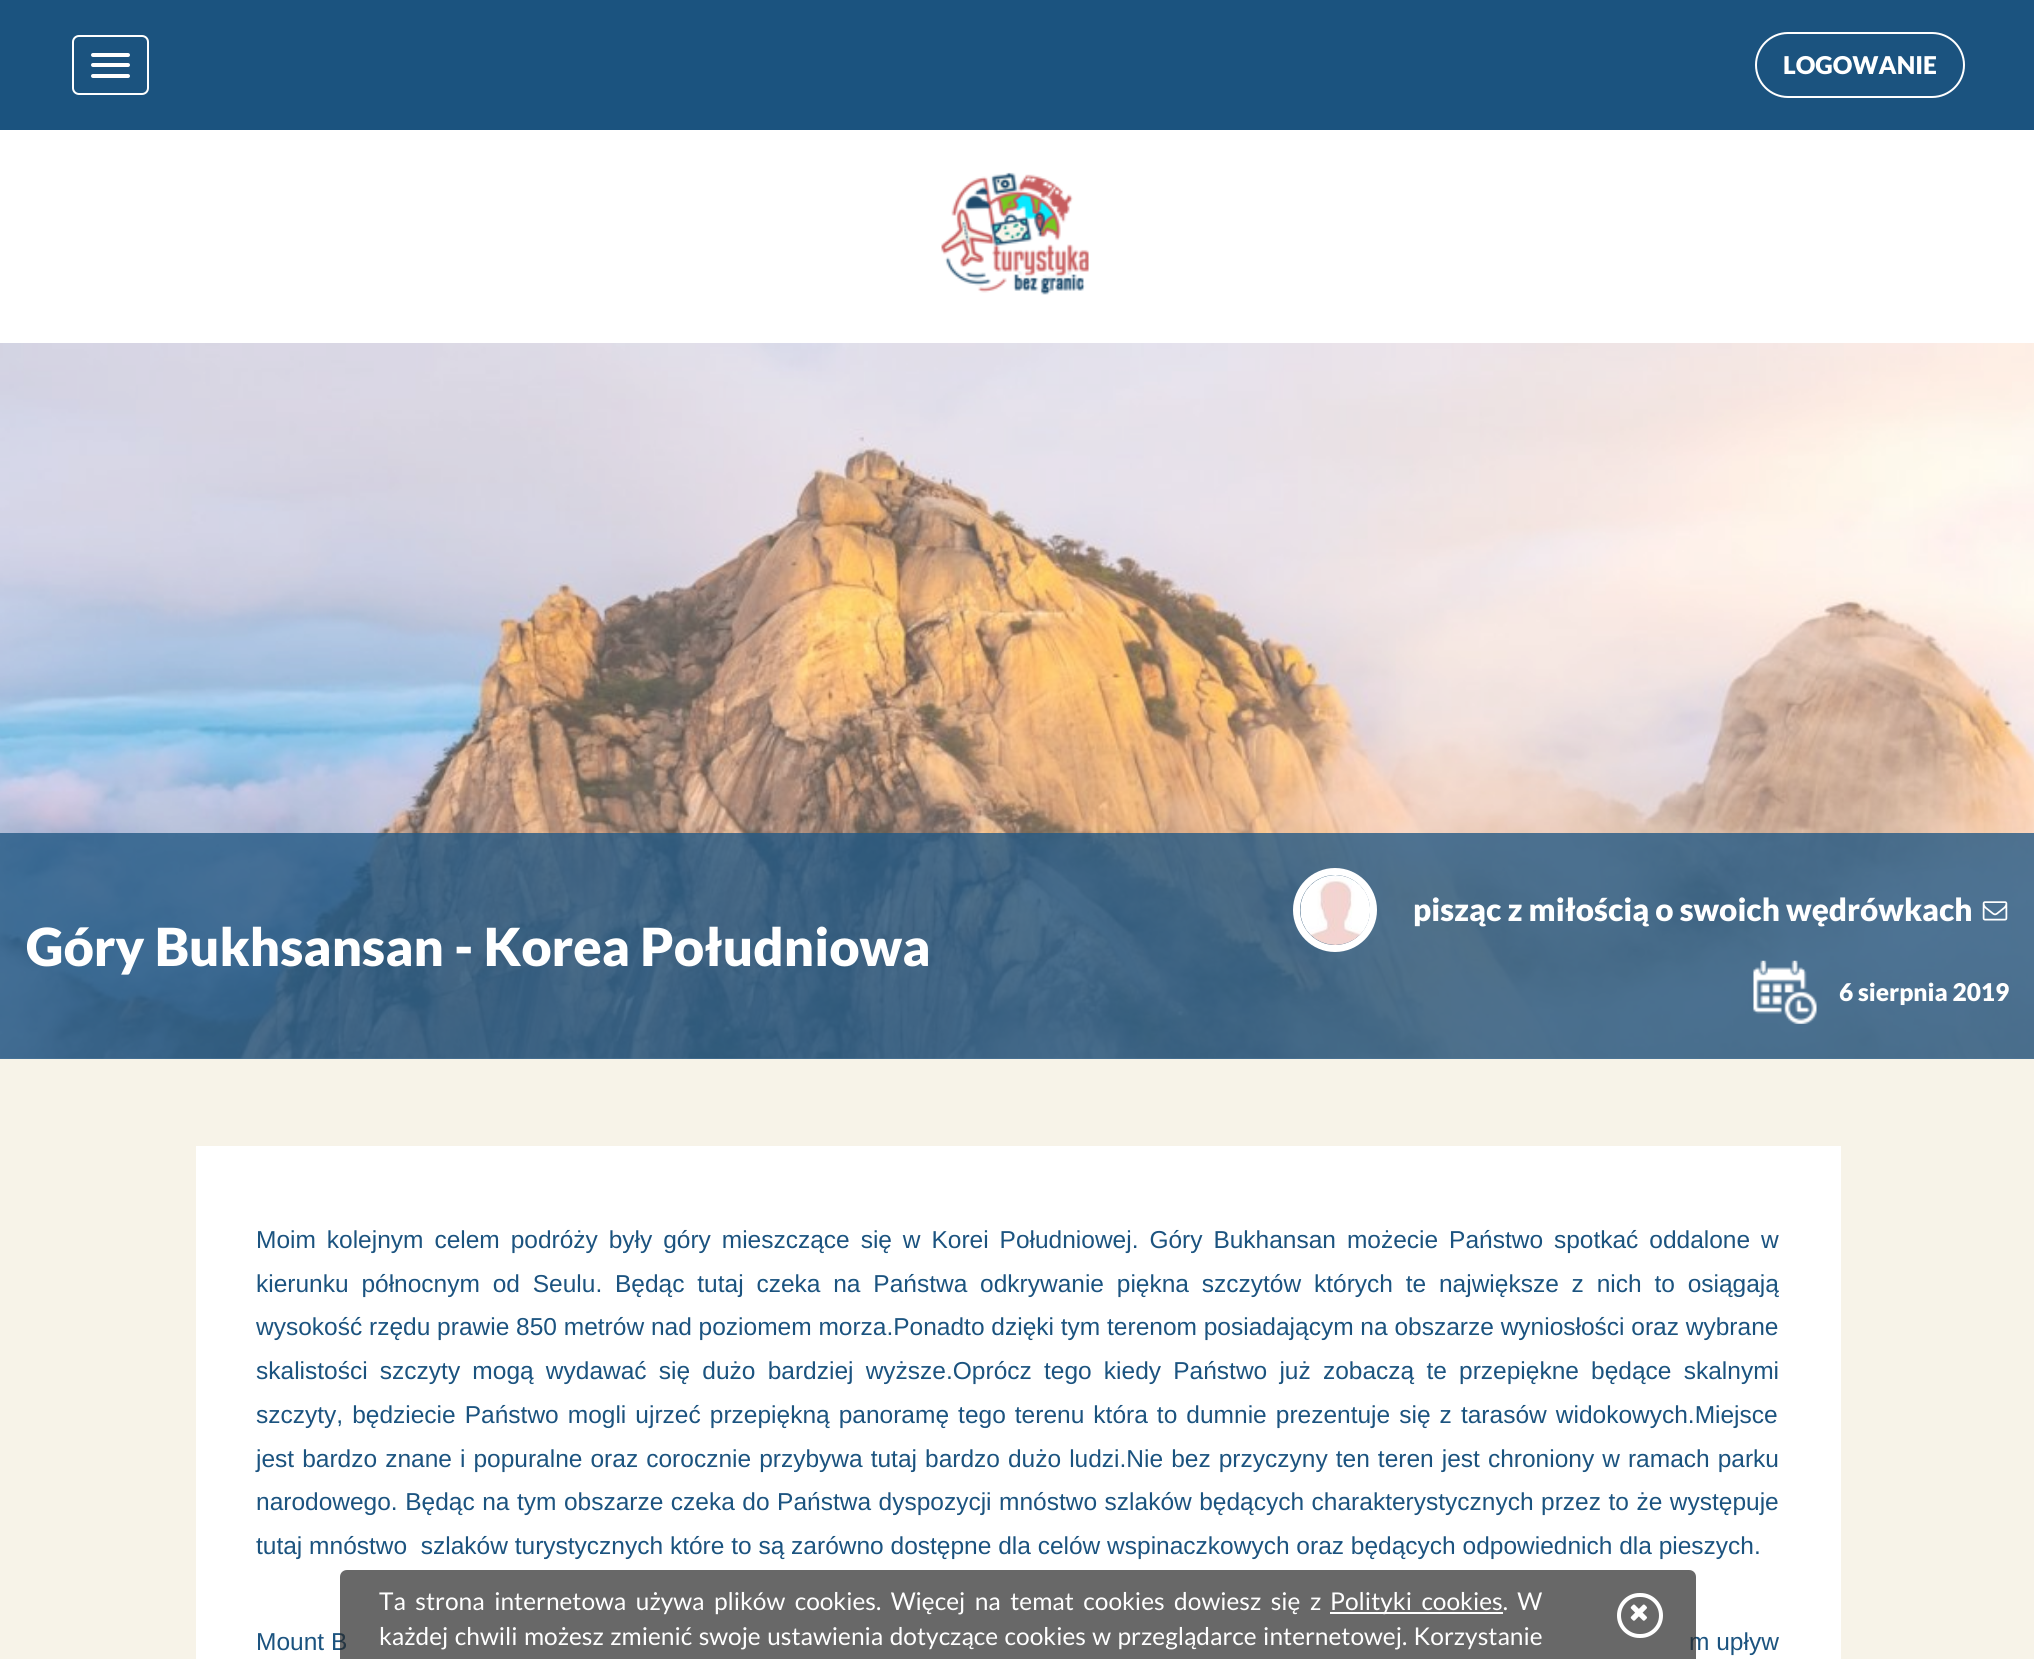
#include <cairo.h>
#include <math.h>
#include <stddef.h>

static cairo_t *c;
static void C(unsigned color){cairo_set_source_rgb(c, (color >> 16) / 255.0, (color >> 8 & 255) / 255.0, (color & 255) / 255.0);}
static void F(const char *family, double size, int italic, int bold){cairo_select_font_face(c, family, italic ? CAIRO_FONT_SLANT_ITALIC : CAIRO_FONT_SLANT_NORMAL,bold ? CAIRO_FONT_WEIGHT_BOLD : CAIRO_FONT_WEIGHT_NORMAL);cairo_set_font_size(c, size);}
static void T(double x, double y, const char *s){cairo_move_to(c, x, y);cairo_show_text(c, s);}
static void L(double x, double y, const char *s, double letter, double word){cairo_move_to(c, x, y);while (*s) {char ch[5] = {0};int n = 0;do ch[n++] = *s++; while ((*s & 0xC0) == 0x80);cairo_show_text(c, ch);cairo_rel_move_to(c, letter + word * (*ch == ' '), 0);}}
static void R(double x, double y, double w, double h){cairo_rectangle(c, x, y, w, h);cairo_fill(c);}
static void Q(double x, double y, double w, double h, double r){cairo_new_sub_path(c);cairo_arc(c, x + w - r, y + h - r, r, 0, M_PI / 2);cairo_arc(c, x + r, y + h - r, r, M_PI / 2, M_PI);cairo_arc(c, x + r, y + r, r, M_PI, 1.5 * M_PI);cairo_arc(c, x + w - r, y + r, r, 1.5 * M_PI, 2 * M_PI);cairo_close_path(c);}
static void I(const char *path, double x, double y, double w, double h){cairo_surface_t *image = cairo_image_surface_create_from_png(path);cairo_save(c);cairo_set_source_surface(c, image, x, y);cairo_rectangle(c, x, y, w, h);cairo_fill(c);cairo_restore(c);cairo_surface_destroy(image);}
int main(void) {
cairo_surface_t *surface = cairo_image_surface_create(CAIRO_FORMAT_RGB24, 2034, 1659);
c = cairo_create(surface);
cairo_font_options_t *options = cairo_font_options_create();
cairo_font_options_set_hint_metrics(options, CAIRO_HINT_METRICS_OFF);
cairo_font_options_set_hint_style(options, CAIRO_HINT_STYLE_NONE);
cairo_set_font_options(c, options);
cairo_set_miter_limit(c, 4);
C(0xf7f3e8);
cairo_paint(c);
C(0x1b537f);
R(0,0,2034,130);
Q(73,36,75,58,6);
C(0xffffff);
cairo_stroke(c);
Q(91,53,39,4,2);
cairo_fill(c);
Q(91,63,39,4,2);
cairo_fill(c);
Q(91,74,39,4,2);
cairo_fill(c);
Q(1756,33,208,64,32);
cairo_stroke(c);
F("Lato Black",24.5,0,0);
T(1783,74,"LOGOWANIE");
R(0,130,2034,929);
I("1.png",941,172,148,123);
I("2.png",0,343,2034,716);
cairo_set_source_rgba(c,0.137,0.349,0.518,0.8);
R(0,833,2034,226);
F("Lato Black",52.5,0,0);
C(0xffffff);
T(26,966,"Góry Bukhsansan - Korea Południowa");
cairo_new_path(c);
cairo_arc(c,1335,910,38.5,0,2 * M_PI);
cairo_set_line_width(c,7);
cairo_stroke(c);
I("3.png",1300,875,70,70);
F("Lato Black",31.5,0,0);
T(1413,921,"pisząc z miłością o swoich wędrówkach");
I("4.png",1982,901,26,20);
I("5.png",1753,960,64,64);
F("Lato Black",24.5,0,0);
T(1839,1001,"6 sierpnia 2019");
R(196,1146,1645,513);
F("Liberation Sans",24.5,0,0);
C(0x1b537f);
L(256,1248,"Moim kolejnym celem podróży były góry mieszczące się w Korei Południowej. Góry Bukhansan możecie Państwo spotkać oddalone w",0,4.1);
L(256,1292,"kierunku północnym od Seulu. Będąc tutaj czeka na Państwa odkrywanie piękna szczytów których te największe z nich to osiągają",0,6);
T(256,1335,"wysokość rzędu prawie 850 metrów nad poziomem morza.Ponadto dzięki tym terenom posiadającym na obszarze wyniosłości oraz wybrane");
L(256,1379,"skalistości szczyty mogą wydawać się dużo bardziej wyższe.Oprócz tego kiedy Państwo już zobaczą te przepiękne będące skalnymi",0,5.4);
L(256,1423,"szczyty, będziecie Państwo mogli ujrzeć przepiękną panoramę tego terenu która to dumnie prezentuje się z tarasów widokowych.Miejsce",0,2.25);
L(256,1467,"jest bardzo znane i popuralne oraz corocznie przybywa tutaj bardzo dużo ludzi.Nie bez przyczyny ten teren jest chroniony w ramach parku",0,1.25);
L(256,1510,"narodowego. Będąc na tym obszarze czeka do Państwa dyspozycji mnóstwo szlaków będących charakterystycznych przez to że występuje",0,.7);
T(256,1554,"tutaj mnóstwo  szlaków turystycznych które to są zarówno dostępne dla celów wspinaczkowych oraz będących odpowiednich dla pieszych.");
T(256,1650,"Mount B");
T(1689,1650,"m upływ");
cairo_set_source_rgba(c,0.161,0.161,0.161,0.7);
cairo_new_path(c);
cairo_move_to(c,347,1570);
cairo_line_to(c,1689,1570);
cairo_curve_to(c,1693,1570,1696,1573,1696,1577);
cairo_line_to(c,1696,1659);
cairo_line_to(c,340,1659);
cairo_line_to(c,340,1577);
cairo_curve_to(c,340,1573,343,1570,347,1570);
cairo_close_path(c);
cairo_fill(c);
F("Lato",24.5,0,0);
C(0xffffff);
L(379,1610,"Ta strona internetowa używa plików cookies. Więcej na temat cookies dowiesz się z",0,4.75);
R(1330,1612,173,2);
L(1330,1610,"Polityki cookies. W",0,4.75);
L(379,1645,"każdej chwili możesz zmienić swoje ustawienia dotyczące cookies w przeglądarce internetowej. Korzystanie",0,1.75);
Q(1619,1595,42,41,20.5);
cairo_set_line_width(c,4);
cairo_stroke(c);
I("6.png",1630,1604,17,17);
cairo_surface_write_to_png(surface, "o.png");
cairo_font_options_destroy(options);
cairo_destroy(c);
cairo_surface_destroy(surface);
return 0;
}
